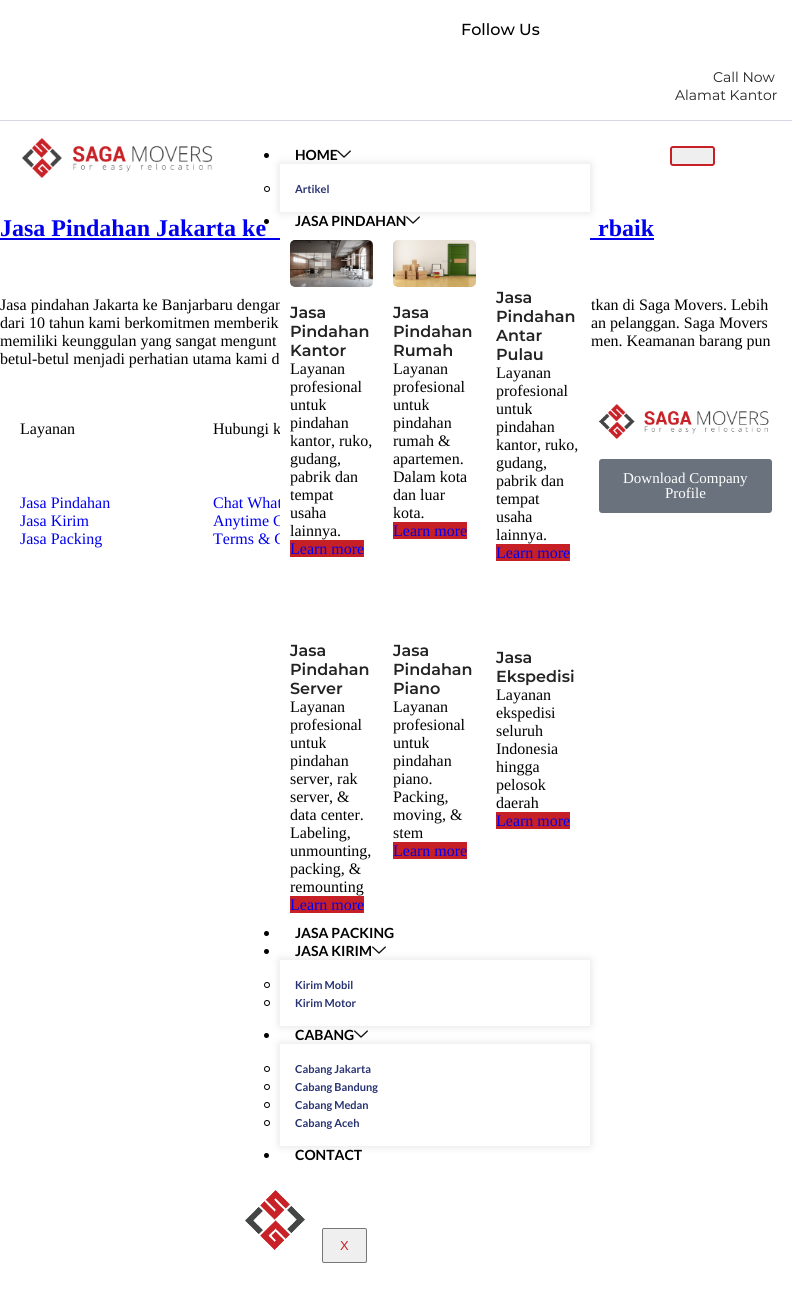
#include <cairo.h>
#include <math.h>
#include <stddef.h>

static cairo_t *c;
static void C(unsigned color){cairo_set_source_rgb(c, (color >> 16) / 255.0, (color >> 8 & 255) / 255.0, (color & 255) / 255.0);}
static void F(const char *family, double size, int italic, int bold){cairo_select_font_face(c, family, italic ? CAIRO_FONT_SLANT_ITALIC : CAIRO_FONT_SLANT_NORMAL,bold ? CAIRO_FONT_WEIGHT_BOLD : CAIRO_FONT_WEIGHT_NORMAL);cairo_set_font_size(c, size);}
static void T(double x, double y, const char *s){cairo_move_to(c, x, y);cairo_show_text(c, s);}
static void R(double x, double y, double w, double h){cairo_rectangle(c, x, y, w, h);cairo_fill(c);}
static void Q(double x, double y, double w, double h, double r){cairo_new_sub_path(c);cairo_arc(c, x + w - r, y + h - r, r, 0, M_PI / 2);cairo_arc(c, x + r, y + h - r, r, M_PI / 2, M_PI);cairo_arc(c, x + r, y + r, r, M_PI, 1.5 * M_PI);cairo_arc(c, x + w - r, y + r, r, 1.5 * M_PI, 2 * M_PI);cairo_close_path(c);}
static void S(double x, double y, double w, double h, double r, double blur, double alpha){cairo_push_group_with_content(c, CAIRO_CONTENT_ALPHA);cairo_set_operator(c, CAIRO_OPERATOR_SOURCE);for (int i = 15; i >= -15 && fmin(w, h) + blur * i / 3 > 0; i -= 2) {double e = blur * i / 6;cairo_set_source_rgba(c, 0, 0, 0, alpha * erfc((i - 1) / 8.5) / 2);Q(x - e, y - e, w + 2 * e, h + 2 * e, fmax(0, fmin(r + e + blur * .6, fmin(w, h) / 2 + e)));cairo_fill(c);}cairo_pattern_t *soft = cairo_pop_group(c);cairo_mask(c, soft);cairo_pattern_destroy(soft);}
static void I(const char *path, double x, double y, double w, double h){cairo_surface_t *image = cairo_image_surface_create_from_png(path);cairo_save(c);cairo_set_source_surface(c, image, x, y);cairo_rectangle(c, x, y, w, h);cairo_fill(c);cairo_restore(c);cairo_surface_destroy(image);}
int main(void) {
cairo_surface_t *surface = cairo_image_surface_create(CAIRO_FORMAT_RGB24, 792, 1307);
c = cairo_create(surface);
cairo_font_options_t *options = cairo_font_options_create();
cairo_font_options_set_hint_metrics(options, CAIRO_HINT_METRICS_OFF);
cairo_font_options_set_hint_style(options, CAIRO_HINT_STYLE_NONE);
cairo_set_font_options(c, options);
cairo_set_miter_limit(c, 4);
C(0xffffff);
cairo_paint(c);
C(0xd4d6e3);
R(0,120,792,1);
F("Montserrat Medium",16,0,0);
C(0x000000);
T(461,35,"Follow Us");
F("Montserrat",14,0,0);
C(0x232323);
T(713,82,"Call Now");
T(675,100,"Alamat Kantor");
I("1.png",22,138,191,40);
cairo_save(c);
cairo_set_fill_rule(c,CAIRO_FILL_RULE_EVEN_ODD);
cairo_new_path(c);
cairo_move_to(c,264,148);
cairo_line_to(c,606,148);
cairo_line_to(c,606,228);
cairo_line_to(c,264,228);
cairo_close_path(c);
cairo_move_to(c,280,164);
cairo_line_to(c,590,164);
cairo_line_to(c,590,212);
cairo_line_to(c,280,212);
cairo_close_path(c);
cairo_clip(c);
C(0x000000);
S(280,164,310,48,0,5,.12);
cairo_restore(c);
C(0x000000);
cairo_arc(c,266.5,155.5,2.5,0,2 * M_PI);
cairo_fill(c);
F("Lato",14,0,1);
T(295,160,"HOME");
I("2.png",337,150,14,8);
cairo_arc(c,267,189,2.5,0,2 * M_PI);
cairo_set_line_width(c,1);
cairo_stroke(c);
F("Lato",11,0,1);
C(0x273272);
T(295,193,"Artikel");
F("Liberation Serif",24,0,1);
C(0x0000ee);
T(0,236,"Jasa Pindahan Jakarta ke");
C(0x000000);
cairo_new_path(c);
cairo_arc(c,266.5,221.5,2.5,0,2 * M_PI);
cairo_fill(c);
F("Lato",14,0,1);
T(295,226,"JASA PINDAHAN");
I("3.png",406,216,14,8);
C(0x0000ee);
R(0,238,654,2);
F("Liberation Serif",16,0,0);
C(0x000000);
T(0,310,"Jasa pindahan Jakarta ke Banjarbaru dengan");
T(213,434,"Hubungi k");
C(0x0000ee);
T(213,508,"Chat What");
T(213,526,"Anytime C");
T(213,544,"Terms & C");
C(0xffffff);
R(280,238,310,307);
I("4.png",290,240,83,47);
F("Montserrat SemiBold",16,0,0);
C(0x232323);
T(290,318,"Jasa");
T(290,337,"Pindahan");
T(290,356,"Kantor");
F("Liberation Serif",16,0,0);
C(0x000000);
T(290,374,"Layanan");
T(290,392,"profesional");
T(290,410,"untuk");
T(290,428,"pindahan");
T(290,446,"kantor, ruko,");
T(290,464,"gudang,");
T(290,482,"pabrik dan");
T(290,500,"tempat");
T(290,518,"usaha");
T(290,536,"lainnya.");
C(0xc62026);
R(290,540,74,17);
C(0x0000ee);
T(290,554,"Learn more");
I("5.png",393,240,83,47);
F("Montserrat SemiBold",16,0,0);
C(0x232323);
T(393,318,"Jasa");
T(393,337,"Pindahan");
T(393,356,"Rumah");
F("Liberation Serif",16,0,0);
C(0x000000);
T(393,374,"Layanan");
T(393,392,"profesional");
T(393,410,"untuk");
T(393,428,"pindahan");
T(393,446,"rumah &");
T(393,464,"apartemen.");
T(393,482,"Dalam kota");
T(393,500,"dan luar");
T(393,518,"kota.");
C(0xc62026);
R(393,522,74,17);
C(0x0000ee);
T(393,536,"Learn more");
F("Montserrat SemiBold",16,0,0);
C(0x232323);
T(496,303,"Jasa");
T(496,322,"Pindahan");
T(496,341,"Antar");
T(496,360,"Pulau");
F("Liberation Serif",16,0,0);
C(0x000000);
T(496,378,"Layanan");
T(496,396,"profesional");
T(496,414,"untuk");
T(496,432,"pindahan");
T(496,450,"kantor, ruko,");
T(496,468,"gudang,");
T(496,486,"pabrik dan");
T(496,504,"tempat");
T(496,522,"usaha");
T(496,540,"lainnya.");
C(0xc62026);
R(496,544,74,17);
C(0x0000ee);
T(496,558,"Learn more");
F("Montserrat SemiBold",16,0,0);
C(0x232323);
T(290,656,"Jasa");
T(290,675,"Pindahan");
T(290,694,"Server");
F("Liberation Serif",16,0,0);
C(0x000000);
T(290,712,"Layanan");
T(290,730,"profesional");
T(290,748,"untuk");
T(290,766,"pindahan");
T(290,784,"server, rak");
T(290,802,"server, &");
T(290,820,"data center.");
T(290,838,"Labeling,");
T(290,856,"unmounting,");
T(290,874,"packing, &");
T(290,892,"remounting");
C(0xc62026);
R(290,896,74,17);
C(0x0000ee);
T(290,910,"Learn more");
F("Montserrat SemiBold",16,0,0);
C(0x232323);
T(393,656,"Jasa");
T(393,675,"Pindahan");
T(393,694,"Piano");
F("Liberation Serif",16,0,0);
C(0x000000);
T(393,712,"Layanan");
T(393,730,"profesional");
T(393,748,"untuk");
T(393,766,"pindahan");
T(393,784,"piano.");
T(393,802,"Packing,");
T(393,820,"moving, &");
T(393,838,"stem");
C(0xc62026);
R(393,842,74,17);
C(0x0000ee);
T(393,856,"Learn more");
F("Montserrat SemiBold",16,0,0);
C(0x232323);
T(496,663,"Jasa");
T(496,682,"Ekspedisi");
F("Liberation Serif",16,0,0);
C(0x000000);
T(496,700,"Layanan");
T(496,718,"ekspedisi");
T(496,736,"seluruh");
T(496,754,"Indonesia");
T(496,772,"hingga");
T(496,790,"pelosok");
T(496,808,"daerah");
C(0xc62026);
R(496,812,74,17);
C(0x0000ee);
T(496,826,"Learn more");
C(0x000000);
cairo_new_path(c);
cairo_arc(c,266.5,933.5,2.5,0,2 * M_PI);
cairo_fill(c);
F("Lato",14,0,1);
T(295,938,"JASA PACKING");
cairo_save(c);
cairo_set_fill_rule(c,CAIRO_FILL_RULE_EVEN_ODD);
cairo_new_path(c);
cairo_move_to(c,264,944);
cairo_line_to(c,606,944);
cairo_line_to(c,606,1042);
cairo_line_to(c,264,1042);
cairo_close_path(c);
cairo_move_to(c,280,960);
cairo_line_to(c,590,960);
cairo_line_to(c,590,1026);
cairo_line_to(c,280,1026);
cairo_close_path(c);
cairo_clip(c);
C(0x000000);
S(280,960,310,66,0,5,.12);
cairo_restore(c);
cairo_arc(c,266.5,951.5,2.5,0,2 * M_PI);
cairo_fill(c);
T(295,956,"JASA KIRIM");
I("2.png",372,946,14,8);
cairo_arc(c,267,985,2.5,0,2 * M_PI);
cairo_stroke(c);
F("Lato",11,0,1);
C(0x273272);
T(295,989,"Kirim Mobil");
cairo_new_path(c);
cairo_arc(c,267,1003,2.5,0,2 * M_PI);
C(0x000000);
cairo_stroke(c);
C(0x273272);
T(295,1007,"Kirim Motor");
cairo_save(c);
cairo_set_fill_rule(c,CAIRO_FILL_RULE_EVEN_ODD);
cairo_new_path(c);
cairo_move_to(c,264,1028);
cairo_line_to(c,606,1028);
cairo_line_to(c,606,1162);
cairo_line_to(c,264,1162);
cairo_close_path(c);
cairo_move_to(c,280,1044);
cairo_line_to(c,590,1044);
cairo_line_to(c,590,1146);
cairo_line_to(c,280,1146);
cairo_close_path(c);
cairo_clip(c);
C(0x000000);
S(280,1044,310,102,0,5,.12);
cairo_restore(c);
C(0x000000);
cairo_arc(c,266.5,1035.5,2.5,0,2 * M_PI);
cairo_fill(c);
F("Lato",14,0,1);
T(295,1040,"CABANG");
I("6.png",354,1030,14,8);
cairo_arc(c,267,1069,2.5,0,2 * M_PI);
cairo_stroke(c);
F("Lato",11,0,1);
C(0x273272);
T(295,1073,"Cabang Jakarta");
cairo_new_path(c);
cairo_arc(c,267,1087,2.5,0,2 * M_PI);
C(0x000000);
cairo_stroke(c);
C(0x273272);
T(295,1091,"Cabang Bandung");
cairo_new_path(c);
cairo_arc(c,267,1105,2.5,0,2 * M_PI);
C(0x000000);
cairo_stroke(c);
C(0x273272);
T(295,1109,"Cabang Medan");
cairo_new_path(c);
cairo_arc(c,267,1123,2.5,0,2 * M_PI);
C(0x000000);
cairo_stroke(c);
C(0x273272);
T(295,1127,"Cabang Aceh");
C(0x000000);
cairo_new_path(c);
cairo_arc(c,266.5,1155.5,2.5,0,2 * M_PI);
cairo_fill(c);
F("Lato",14,0,1);
T(295,1160,"CONTACT");
I("7.png",245,1190,60,60);
C(0xefefef);
Q(322.5,1228.5,44,34,1.5);
cairo_fill_preserve(c);
C(0x767676);
cairo_stroke(c);
F("Liberation Sans",13,0,0);
C(0xc62026);
T(340,1250,"X");
C(0xefefef);
Q(671,147,43,18,2);
cairo_fill_preserve(c);
C(0xc62026);
cairo_set_line_width(c,2);
cairo_stroke(c);
F("Liberation Serif",24,0,1);
C(0x0000ee);
T(598,236,"rbaik");
F("Liberation Serif",16,0,0);
C(0x000000);
T(591,310,"tkan di Saga Movers. Lebih");
T(0,328,"dari 10 tahun kami berkomitmen memberik");
T(591,328,"an pelanggan. Saga Movers");
T(0,346,"memiliki keunggulan yang sangat mengunt");
T(591,346,"men. Keamanan barang pun");
T(0,364,"betul-betul menjadi perhatian utama kami d");
T(20,434,"Layanan");
C(0x0000ee);
T(20,508,"Jasa Pindahan");
T(20,526,"Jasa Kirim");
T(20,544,"Jasa Packing");
I("8.png",599,404,170,35);
C(0x69727d);
Q(599,459,173,54,3);
cairo_fill(c);
F("Liberation Serif",15,0,0);
C(0xffffff);
T(623,483,"Download Company");
T(665,498,"Profile");
cairo_surface_write_to_png(surface, "o.png");
cairo_font_options_destroy(options);
cairo_destroy(c);
cairo_surface_destroy(surface);
return 0;
}
